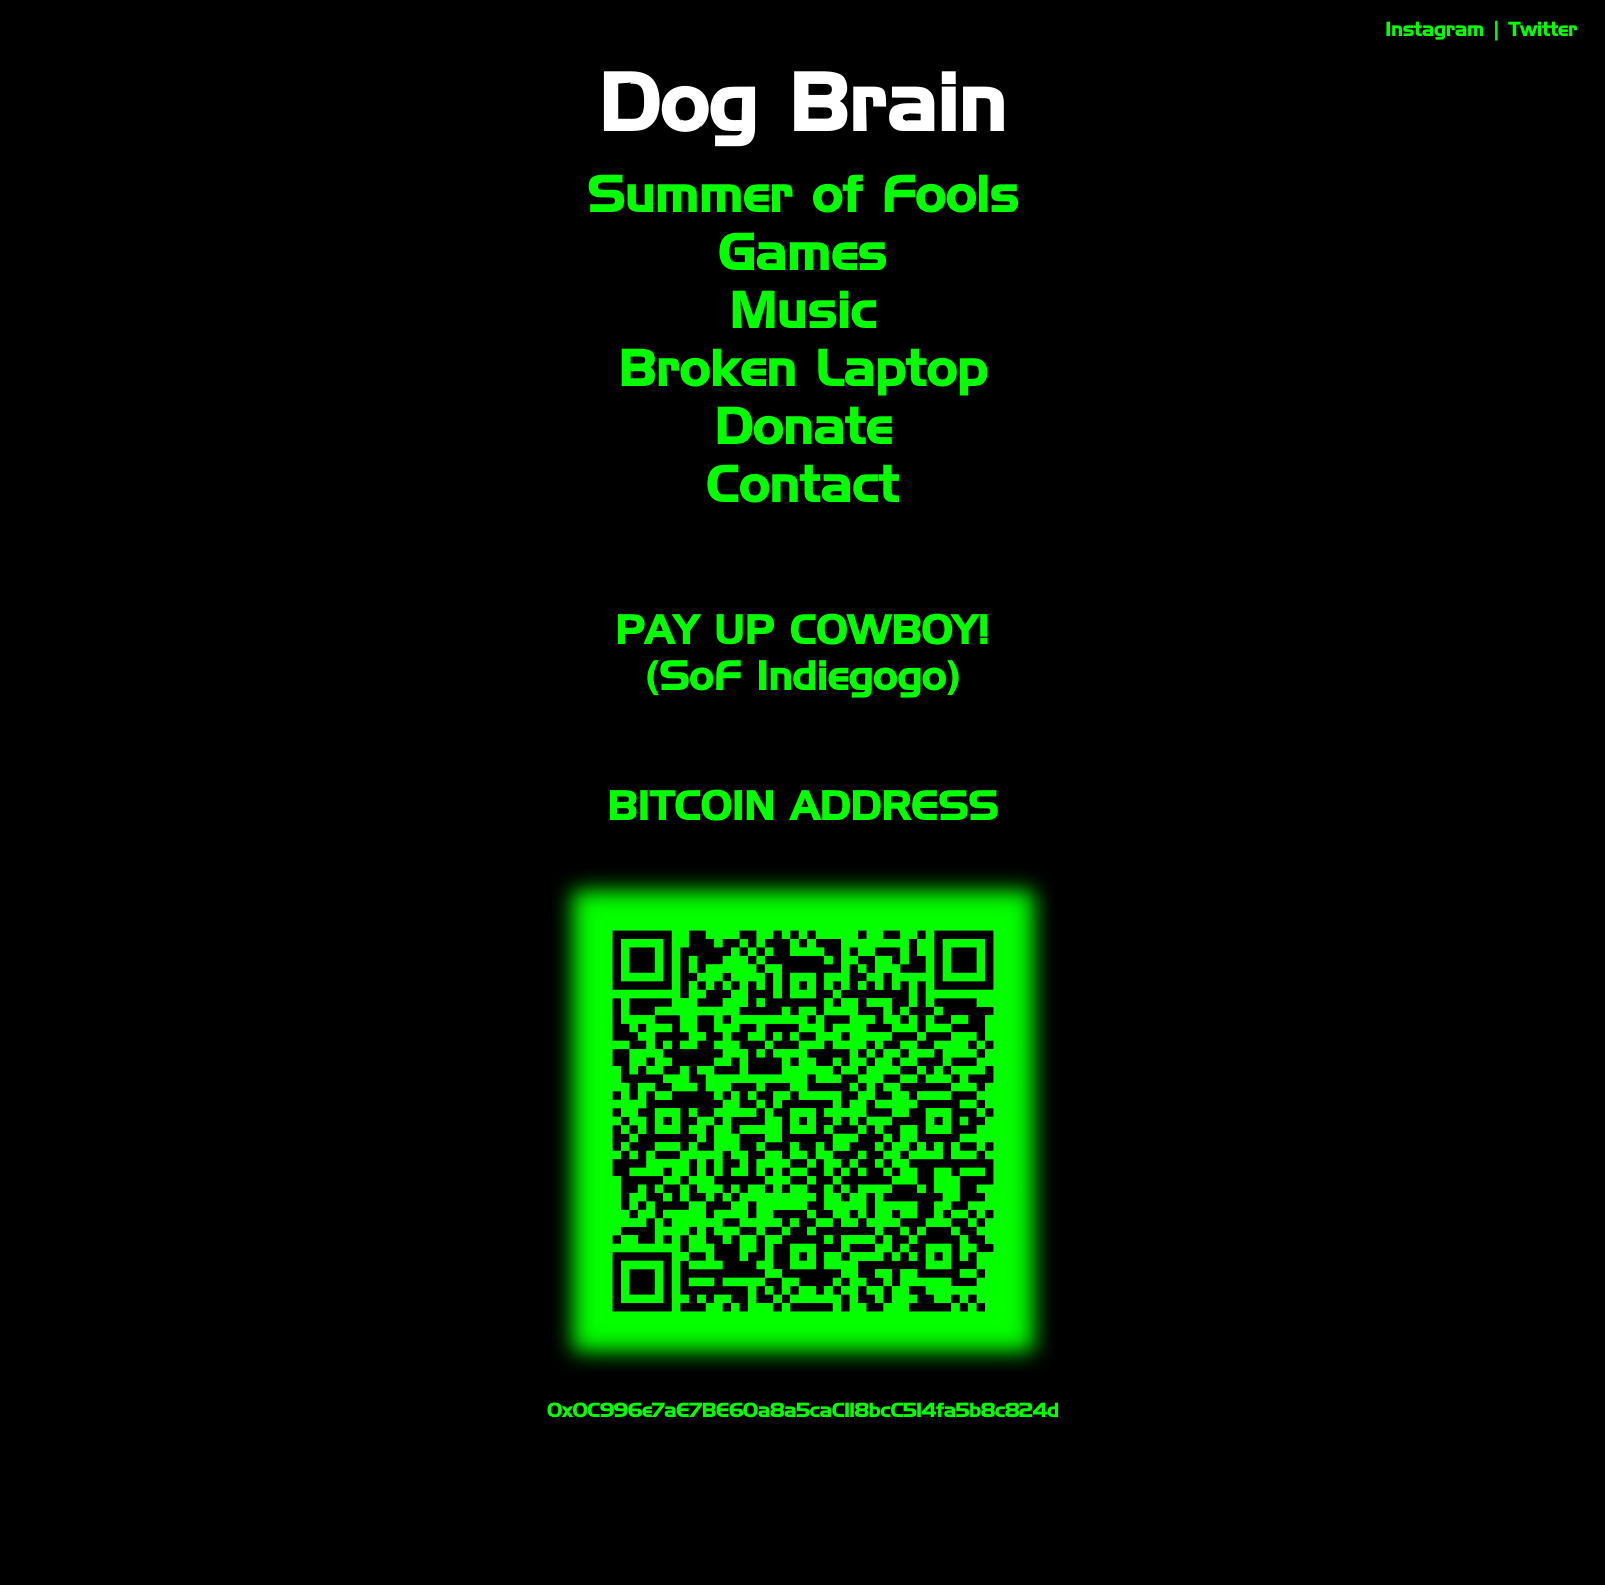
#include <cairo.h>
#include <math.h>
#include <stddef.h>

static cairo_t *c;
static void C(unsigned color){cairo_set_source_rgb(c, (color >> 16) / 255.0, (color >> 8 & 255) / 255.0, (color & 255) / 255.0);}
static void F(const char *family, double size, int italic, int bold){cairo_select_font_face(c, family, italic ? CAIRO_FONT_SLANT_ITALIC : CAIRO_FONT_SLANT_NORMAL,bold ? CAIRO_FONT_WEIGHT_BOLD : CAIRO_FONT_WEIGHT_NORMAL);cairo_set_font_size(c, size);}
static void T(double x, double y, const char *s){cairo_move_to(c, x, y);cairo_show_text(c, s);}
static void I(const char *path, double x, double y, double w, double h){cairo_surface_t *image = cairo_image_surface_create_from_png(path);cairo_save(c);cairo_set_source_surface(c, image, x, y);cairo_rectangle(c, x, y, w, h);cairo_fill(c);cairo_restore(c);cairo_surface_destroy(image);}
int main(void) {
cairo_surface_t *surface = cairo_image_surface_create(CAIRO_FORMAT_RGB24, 1605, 1585);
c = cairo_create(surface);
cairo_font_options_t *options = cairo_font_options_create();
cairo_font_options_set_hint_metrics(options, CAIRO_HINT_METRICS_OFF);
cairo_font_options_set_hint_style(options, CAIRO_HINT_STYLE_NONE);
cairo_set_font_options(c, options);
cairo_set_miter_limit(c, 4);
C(0x000000);
cairo_paint(c);
F("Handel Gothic",19.2,0,1);
C(0x04ff00);
T(1385,36,"Instagram | Twitter");
F("Handel Gothic",80,0,1);
C(0xffffff);
T(598,131,"Dog Brain");
F("Handel Gothic",50,0,1);
C(0x04ff00);
T(587,212,"Summer of Fools");
T(718,270,"Games");
T(729,328,"Music");
T(618,386,"Broken Laptop");
T(714,444,"Donate");
T(706,502,"Contact");
F("Handel Gothic",40,0,1);
T(615,644,"PAY UP COWBOY!");
T(645,690,"(SoF Indiegogo)");
T(607,820,"BITCOIN ADDRESS");
I("1.png",552,870,502,502);
F("Handel Gothic",19.2,0,1);
T(547,1417,"0x0C996e7aE7BE60a8a5caC118bcC514fa5b8c824d");
cairo_surface_write_to_png(surface, "o.png");
cairo_font_options_destroy(options);
cairo_destroy(c);
cairo_surface_destroy(surface);
return 0;
}
